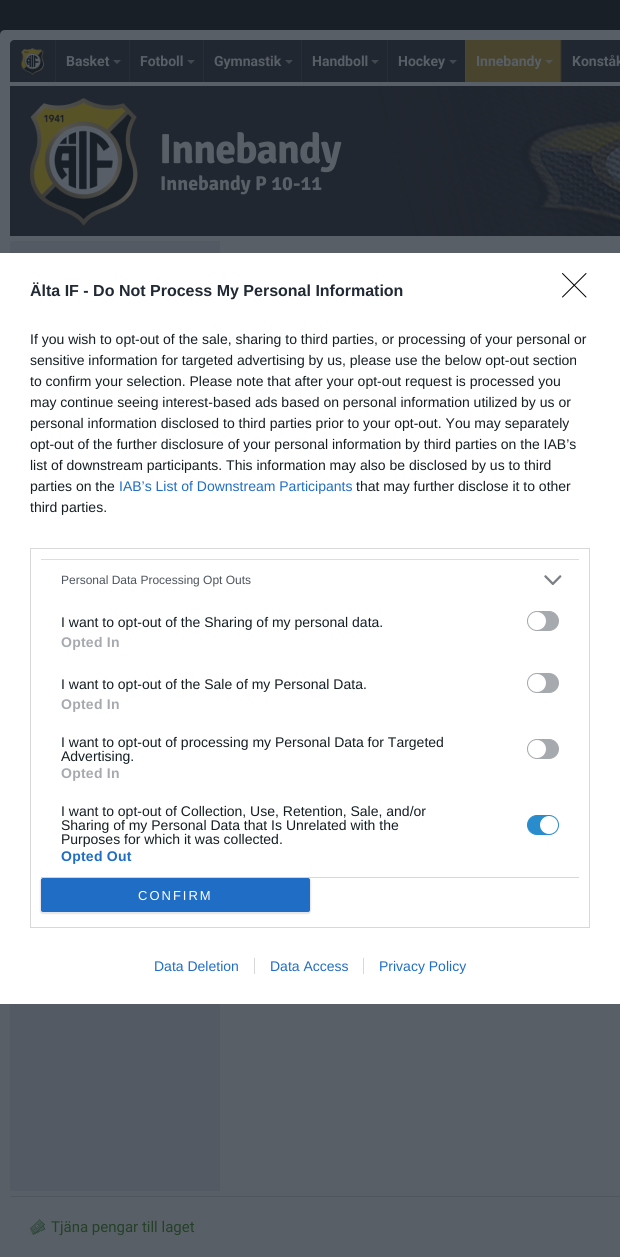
#include <cairo.h>
#include <math.h>
#include <stddef.h>

static cairo_t *c;
static void C(unsigned color){cairo_set_source_rgb(c, (color >> 16) / 255.0, (color >> 8 & 255) / 255.0, (color & 255) / 255.0);}
static void F(const char *family, double size, int italic, int bold){cairo_select_font_face(c, family, italic ? CAIRO_FONT_SLANT_ITALIC : CAIRO_FONT_SLANT_NORMAL,bold ? CAIRO_FONT_WEIGHT_BOLD : CAIRO_FONT_WEIGHT_NORMAL);cairo_set_font_size(c, size);}
static void T(double x, double y, const char *s){cairo_move_to(c, x, y);cairo_show_text(c, s);}
static void L(double x, double y, const char *s, double letter, double word){cairo_move_to(c, x, y);while (*s) {char ch[5] = {0};int n = 0;do ch[n++] = *s++; while ((*s & 0xC0) == 0x80);cairo_show_text(c, ch);cairo_rel_move_to(c, letter + word * (*ch == ' '), 0);}}
static void R(double x, double y, double w, double h){cairo_rectangle(c, x, y, w, h);cairo_fill(c);}
static void Q(double x, double y, double w, double h, double r){cairo_new_sub_path(c);cairo_arc(c, x + w - r, y + h - r, r, 0, M_PI / 2);cairo_arc(c, x + r, y + h - r, r, M_PI / 2, M_PI);cairo_arc(c, x + r, y + r, r, M_PI, 1.5 * M_PI);cairo_arc(c, x + w - r, y + r, r, 1.5 * M_PI, 2 * M_PI);cairo_close_path(c);}
static void S(double x, double y, double w, double h, double r, double blur, double alpha){cairo_push_group_with_content(c, CAIRO_CONTENT_ALPHA);cairo_set_operator(c, CAIRO_OPERATOR_SOURCE);for (int i = 15; i >= -15 && fmin(w, h) + blur * i / 3 > 0; i -= 2) {double e = blur * i / 6;cairo_set_source_rgba(c, 0, 0, 0, alpha * erfc((i - 1) / 8.5) / 2);Q(x - e, y - e, w + 2 * e, h + 2 * e, fmax(0, fmin(r + e + blur * .6, fmin(w, h) / 2 + e)));cairo_fill(c);}cairo_pattern_t *soft = cairo_pop_group(c);cairo_mask(c, soft);cairo_pattern_destroy(soft);}
static void I(const char *path, double x, double y, double w, double h){cairo_surface_t *image = cairo_image_surface_create_from_png(path);cairo_save(c);cairo_set_source_surface(c, image, x, y);cairo_rectangle(c, x, y, w, h);cairo_fill(c);cairo_restore(c);cairo_surface_destroy(image);}
int main(void) {
cairo_surface_t *surface = cairo_image_surface_create(CAIRO_FORMAT_RGB24, 620, 1257);
c = cairo_create(surface);
cairo_font_options_t *options = cairo_font_options_create();
cairo_font_options_set_hint_metrics(options, CAIRO_HINT_METRICS_OFF);
cairo_font_options_set_hint_style(options, CAIRO_HINT_STYLE_NONE);
cairo_set_font_options(c, options);
cairo_set_miter_limit(c, 4);
C(0x191f27);
cairo_paint(c);
C(0x595f67);
cairo_new_path(c);
cairo_move_to(c,5,30);
cairo_line_to(c,620,30);
cairo_curve_to(c,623,30,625,32,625,35);
cairo_line_to(c,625,1257);
cairo_line_to(c,0,1257);
cairo_line_to(c,0,35);
cairo_curve_to(c,0,32,2,30,5,30);
cairo_close_path(c);
cairo_fill(c);
C(0x212730);
cairo_new_path(c);
cairo_move_to(c,14,40);
cairo_line_to(c,620,40);
cairo_curve_to(c,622,40,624,42,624,44);
cairo_line_to(c,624,82);
cairo_line_to(c,10,82);
cairo_line_to(c,10,44);
cairo_curve_to(c,10,42,12,40,14,40);
cairo_close_path(c);
cairo_fill(c);
I("1.png",21,48,23,27);
C(0x272d35);
R(55,40,1,42);
F("Roboto",14,0,1);
C(0x595f67);
T(66,66,"Basket");
C(0x434951);
cairo_new_path(c);
cairo_move_to(c,113,60);
cairo_line_to(c,121,60);
cairo_line_to(c,117,64);
cairo_close_path(c);
cairo_fill(c);
C(0x272d35);
R(129,40,1,42);
C(0x595f67);
T(140,66,"Fotboll");
C(0x434951);
cairo_new_path(c);
cairo_move_to(c,187,60);
cairo_line_to(c,195,60);
cairo_line_to(c,191,64);
cairo_close_path(c);
cairo_fill(c);
C(0x272d35);
R(203,40,1,42);
C(0x595f67);
T(214,66,"Gymnastik");
C(0x434951);
cairo_new_path(c);
cairo_move_to(c,285,60);
cairo_line_to(c,293,60);
cairo_line_to(c,289,64);
cairo_close_path(c);
cairo_fill(c);
C(0x272d35);
R(301,40,1,42);
C(0x595f67);
T(312,66,"Handboll");
C(0x434951);
cairo_new_path(c);
cairo_move_to(c,371,60);
cairo_line_to(c,379,60);
cairo_line_to(c,375,64);
cairo_close_path(c);
cairo_fill(c);
C(0x272d35);
R(387,40,1,42);
C(0x595f67);
T(398,66,"Hockey");
C(0x434951);
cairo_new_path(c);
cairo_move_to(c,449,60);
cairo_line_to(c,457,60);
cairo_line_to(c,453,64);
cairo_close_path(c);
cairo_fill(c);
C(0x48442e);
R(466,40,94,42);
C(0x3f3c2d);
R(560,40,1,42);
C(0x4a4734);
R(465,40,1,42);
C(0x595f67);
T(476,66,"Innebandy");
C(0x525450);
cairo_new_path(c);
cairo_move_to(c,545,60);
cairo_line_to(c,553,60);
cairo_line_to(c,549,64);
cairo_close_path(c);
cairo_fill(c);
C(0x272d35);
R(561,40,1,42);
C(0x595f67);
T(572,66,"Konståk");
C(0x212730);
R(10,86,610,150);
I("2.png",30,86,590,150);
F("Signika Light",42,0,0);
C(0x595f67);
L(159,163,"Innebandy",-1,0);
F("Signika Light",20,0,0);
T(160,190,"Innebandy P 10-11");
C(0x545a63);
R(10,241,210,950);
C(0x50565e);
R(10,1196,610,1);
I("3.png",30,1219,16,16);
F("Roboto",15,0,0);
C(0x244127);
T(51,1232,"Tjäna pengar till laget");
C(0xffffff);
R(0,253,620,751);
cairo_new_path(c);
cairo_move_to(c,562.5,273.5);
cairo_line_to(c,586,297);
cairo_move_to(c,586,273.5);
cairo_line_to(c,562.5,297);
C(0x000000);
cairo_set_line_width(c,1);
cairo_set_line_cap(c,CAIRO_LINE_CAP_ROUND);
cairo_set_line_join(c,CAIRO_LINE_JOIN_ROUND);
cairo_stroke(c);
F("Liberation Sans",16,0,1);
C(0x212934);
T(30,296,"Älta IF - Do Not Process My Personal Information");
F("Liberation Sans",14,0,0);
C(0x141e23);
T(30,344,"If you wish to opt-out of the sale, sharing to third parties, or processing of your personal or");
T(30,365,"sensitive information for targeted advertising by us, please use the below opt-out section");
T(30,386,"to confirm your selection. Please note that after your opt-out request is processed you");
T(30,407,"may continue seeing interest-based ads based on personal information utilized by us or");
T(30,428,"personal information disclosed to third parties prior to your opt-out. You may separately");
T(30,449,"opt-out of the further disclosure of your personal information by third parties on the IAB’s");
T(30,470,"list of downstream participants. This information may also be disclosed by us to third");
T(30,491,"parties on the");
C(0x206dc5);
T(119,491,"IAB’s List of Downstream Participants");
C(0x141e23);
T(356,491,"that may further disclose it to other");
T(30,512,"third parties.");
cairo_rectangle(c,30.5,548.5,559,379);
C(0xd8d8d8);
cairo_set_line_cap(c,CAIRO_LINE_CAP_BUTT);
cairo_set_line_join(c,CAIRO_LINE_JOIN_MITER);
cairo_stroke(c);
C(0xdddddd);
R(41,559,538,1);
C(0xd8d8d8);
R(41,877,538,1);
F("Liberation Sans",12,0,0);
C(0x4d545d);
T(61,584,"Personal Data Processing Opt Outs");
I("4.png",544,575,18,11);
F("Liberation Sans",14,0,0);
C(0x141e23);
T(61,627,"I want to opt-out of the Sharing of my personal data.");
C(0xa6a9ae);
Q(527.5,611.5,31,19,9.5);
cairo_fill_preserve(c);
cairo_stroke(c);
C(0xffffff);
cairo_arc(c,537,621,9,0,2 * M_PI);
cairo_fill(c);
F("Liberation Sans",14,0,1);
C(0xa6a9ae);
L(61,647,"Opted In",.25,0);
F("Liberation Sans",14,0,0);
C(0x141e23);
T(61,689,"I want to opt-out of the Sale of my Personal Data.");
C(0xa6a9ae);
Q(527.5,673.5,31,19,9.5);
cairo_fill_preserve(c);
cairo_stroke(c);
C(0xffffff);
cairo_arc(c,537,683,9,0,2 * M_PI);
cairo_fill(c);
F("Liberation Sans",14,0,1);
C(0xa6a9ae);
L(61,709,"Opted In",.25,0);
F("Liberation Sans",14,0,0);
C(0x141e23);
T(61,747,"I want to opt-out of processing my Personal Data for Targeted");
T(61,761,"Advertising.");
C(0xa6a9ae);
Q(527.5,739.5,31,19,9.5);
cairo_fill_preserve(c);
cairo_stroke(c);
C(0xffffff);
cairo_arc(c,537,749,9,0,2 * M_PI);
cairo_fill(c);
F("Liberation Sans",14,0,1);
C(0xa6a9ae);
L(61,778,"Opted In",.25,0);
F("Liberation Sans",14,0,0);
C(0x141e23);
T(61,816,"I want to opt-out of Collection, Use, Retention, Sale, and/or");
T(61,830,"Sharing of my Personal Data that Is Unrelated with the");
T(61,844,"Purposes for which it was collected.");
C(0x298ccd);
Q(527.5,815.5,31,19,9.5);
cairo_fill_preserve(c);
cairo_stroke(c);
C(0xffffff);
cairo_arc(c,549,825,9,0,2 * M_PI);
cairo_fill(c);
F("Liberation Sans",14,0,1);
C(0x206dc5);
L(61,861,"Opted Out",.25,0);
C(0x000000);
S(40,878,271,36,3,.5,.1);
C(0x206dc5);
Q(41,878,269,34,2);
cairo_fill(c);
F("Liberation Sans",13,0,0);
C(0xffffff);
L(138,900,"CONFIRM",2,0);
F("Liberation Sans",14,0,0);
C(0x206dc5);
T(154,971,"Data Deletion");
T(270,971,"Data Access");
C(0xd8d8d8);
R(254,958,1,16);
C(0x206dc5);
T(379,971,"Privacy Policy");
C(0xd8d8d8);
R(363,958,1,16);
cairo_surface_write_to_png(surface, "o.png");
cairo_font_options_destroy(options);
cairo_destroy(c);
cairo_surface_destroy(surface);
return 0;
}
